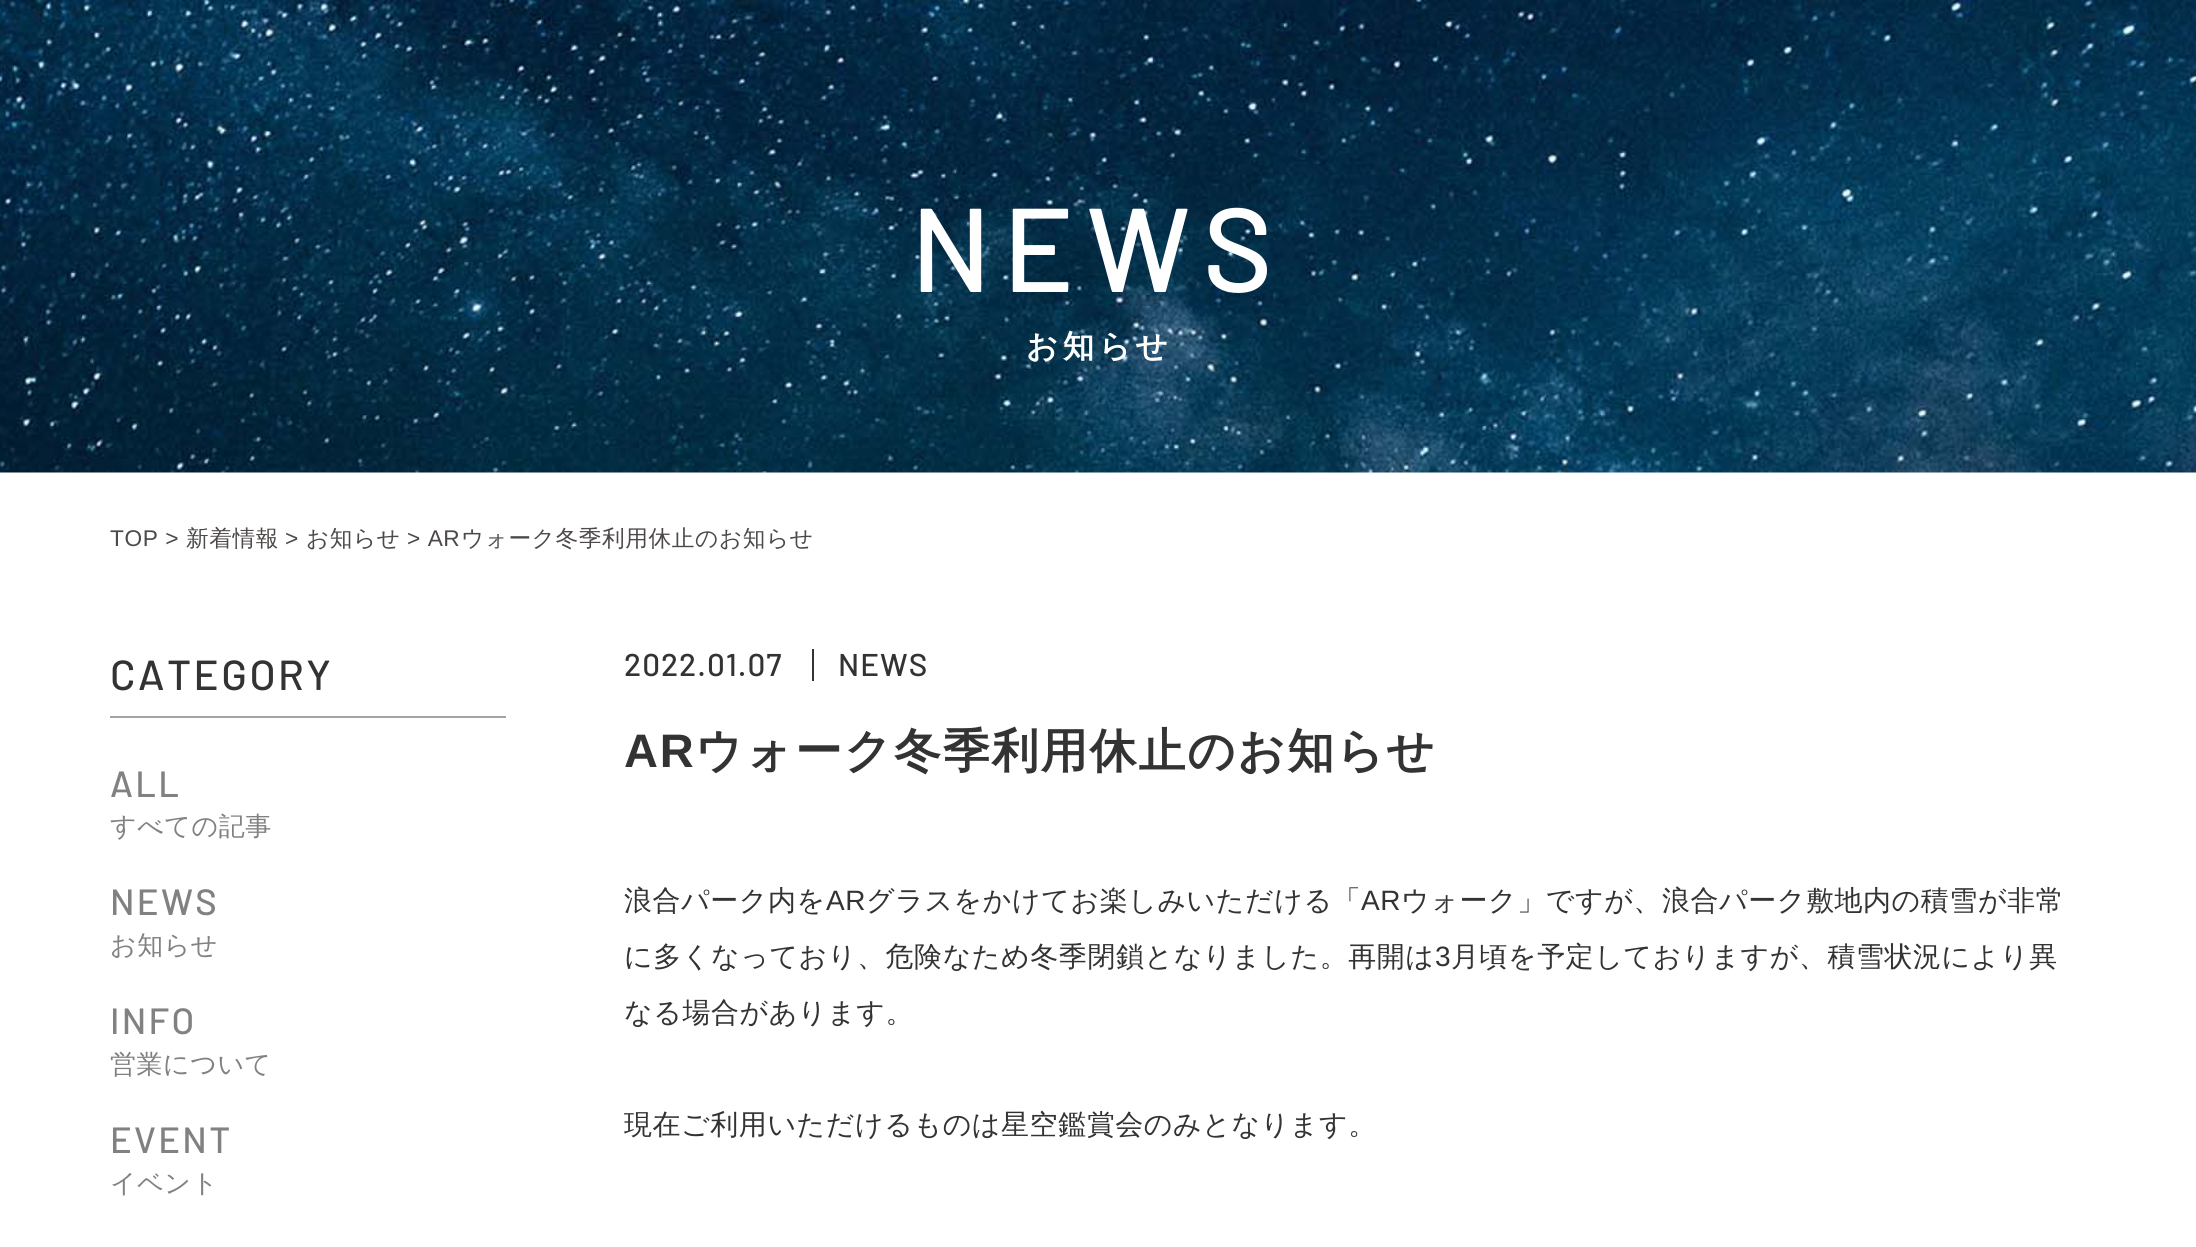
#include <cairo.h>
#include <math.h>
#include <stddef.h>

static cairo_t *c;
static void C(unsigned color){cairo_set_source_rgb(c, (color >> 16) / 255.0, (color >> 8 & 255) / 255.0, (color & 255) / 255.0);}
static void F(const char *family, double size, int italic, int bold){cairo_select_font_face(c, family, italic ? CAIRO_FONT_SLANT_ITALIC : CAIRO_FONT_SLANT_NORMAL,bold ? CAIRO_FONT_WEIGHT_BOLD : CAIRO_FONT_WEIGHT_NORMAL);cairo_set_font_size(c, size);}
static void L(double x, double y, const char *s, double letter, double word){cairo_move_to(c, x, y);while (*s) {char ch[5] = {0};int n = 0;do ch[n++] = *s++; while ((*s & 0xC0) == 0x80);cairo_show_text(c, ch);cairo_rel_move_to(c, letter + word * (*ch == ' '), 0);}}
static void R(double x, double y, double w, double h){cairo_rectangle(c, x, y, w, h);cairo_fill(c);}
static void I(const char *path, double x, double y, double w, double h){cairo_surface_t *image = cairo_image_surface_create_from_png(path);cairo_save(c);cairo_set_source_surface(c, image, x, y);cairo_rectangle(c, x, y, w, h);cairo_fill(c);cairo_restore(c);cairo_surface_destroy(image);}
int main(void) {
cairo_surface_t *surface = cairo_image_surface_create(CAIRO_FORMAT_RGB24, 2196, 1247);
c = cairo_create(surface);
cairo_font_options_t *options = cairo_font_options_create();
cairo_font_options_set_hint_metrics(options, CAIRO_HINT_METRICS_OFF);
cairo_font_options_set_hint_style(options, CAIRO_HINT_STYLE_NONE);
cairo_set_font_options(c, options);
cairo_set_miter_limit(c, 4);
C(0xffffff);
cairo_paint(c);
I("1.png",0,0,2196,473);
F("Barlow Medium",119,0,0);
C(0xffffff);
L(911,292,"NEWS",12,0);
F("WenQuanYi Zen Hei",31.5,0,1);
L(1026,357,"お知らせ",4.5,0);
F("Liberation Sans",22.7,0,0);
C(0x4c4948);
L(110,546,"TOP >",.55,0);
F("WenQuanYi Zen Hei Medium",22.7,0,0);
L(186,546,"新着情報",.55,0);
F("Liberation Sans",22.7,0,0);
L(285,546,">",.55,0);
F("WenQuanYi Zen Hei Medium",22.7,0,0);
L(306,546,"お知らせ",.55,0);
F("Liberation Sans",22.7,0,0);
L(407,546,"> AR",.55,0);
F("WenQuanYi Zen Hei Medium",22.7,0,0);
L(461,546,"ウォーク冬季利用休止のお知らせ",.55,0);
C(0xa3a3a3);
R(110,716,396,2);
F("Barlow Medium",42,0,0);
C(0x333333);
L(110,690,"CATEGORY",2.5,0);
F("Barlow Medium",36.5,0,0);
C(0x818181);
L(110,797,"ALL",2.25,0);
F("WenQuanYi Zen Hei Medium",26,0,0);
L(110,835,"すべての記事",.55,0);
F("Barlow Medium",36.5,0,0);
L(110,915,"NEWS",2.25,0);
F("WenQuanYi Zen Hei Medium",26,0,0);
L(110,954,"お知らせ",.55,0);
F("Barlow Medium",36.5,0,0);
L(110,1034,"INFO",2.25,0);
F("WenQuanYi Zen Hei Medium",26,0,0);
L(110,1073,"営業について",.55,0);
F("Barlow Medium",36.5,0,0);
L(110,1153,"EVENT",2.25,0);
F("WenQuanYi Zen Hei Medium",26,0,0);
L(110,1192,"イベント",.55,0);
F("Barlow Medium",31.5,0,0);
C(0x333333);
L(624,676,"2022.01.07",1,0);
R(812,649,2,32);
L(838,676,"NEWS",1,0);
F("Liberation Sans",47,0,1);
L(624,767,"AR",1.9,0);
F("WenQuanYi Zen Hei",47,0,1);
L(695,767,"ウォーク冬季利用休止のお知らせ",1.9,0);
F("WenQuanYi Zen Hei Medium",28,0,0);
L(624,910,"浪合パーク内を",.55,0);
F("Liberation Sans",28,0,0);
L(826,910,"AR",.55,0);
F("WenQuanYi Zen Hei Medium",28,0,0);
L(866,910,"グラスをかけてお楽しみいただける「",.55,0);
F("Liberation Sans",28,0,0);
L(1361,910,"AR",.55,0);
F("WenQuanYi Zen Hei Medium",28,0,0);
L(1401,910,"ウォーク」ですが、浪合パーク敷地内の積雪が非常",.55,0);
L(624,966,"に多くなっており、危険なため冬季閉鎖となりました。再開は",.55,0);
F("Liberation Sans",28,0,0);
L(1435,966,"3",.55,0);
F("WenQuanYi Zen Hei Medium",28,0,0);
L(1451,966,"月頃を予定しておりますが、積雪状況により異",.55,0);
L(624,1022,"なる場合があります。",.55,0);
L(624,1134,"現在ご利用いただけるものは星空鑑賞会のみとなります。",.55,0);
cairo_surface_write_to_png(surface, "o.png");
cairo_font_options_destroy(options);
cairo_destroy(c);
cairo_surface_destroy(surface);
return 0;
}
